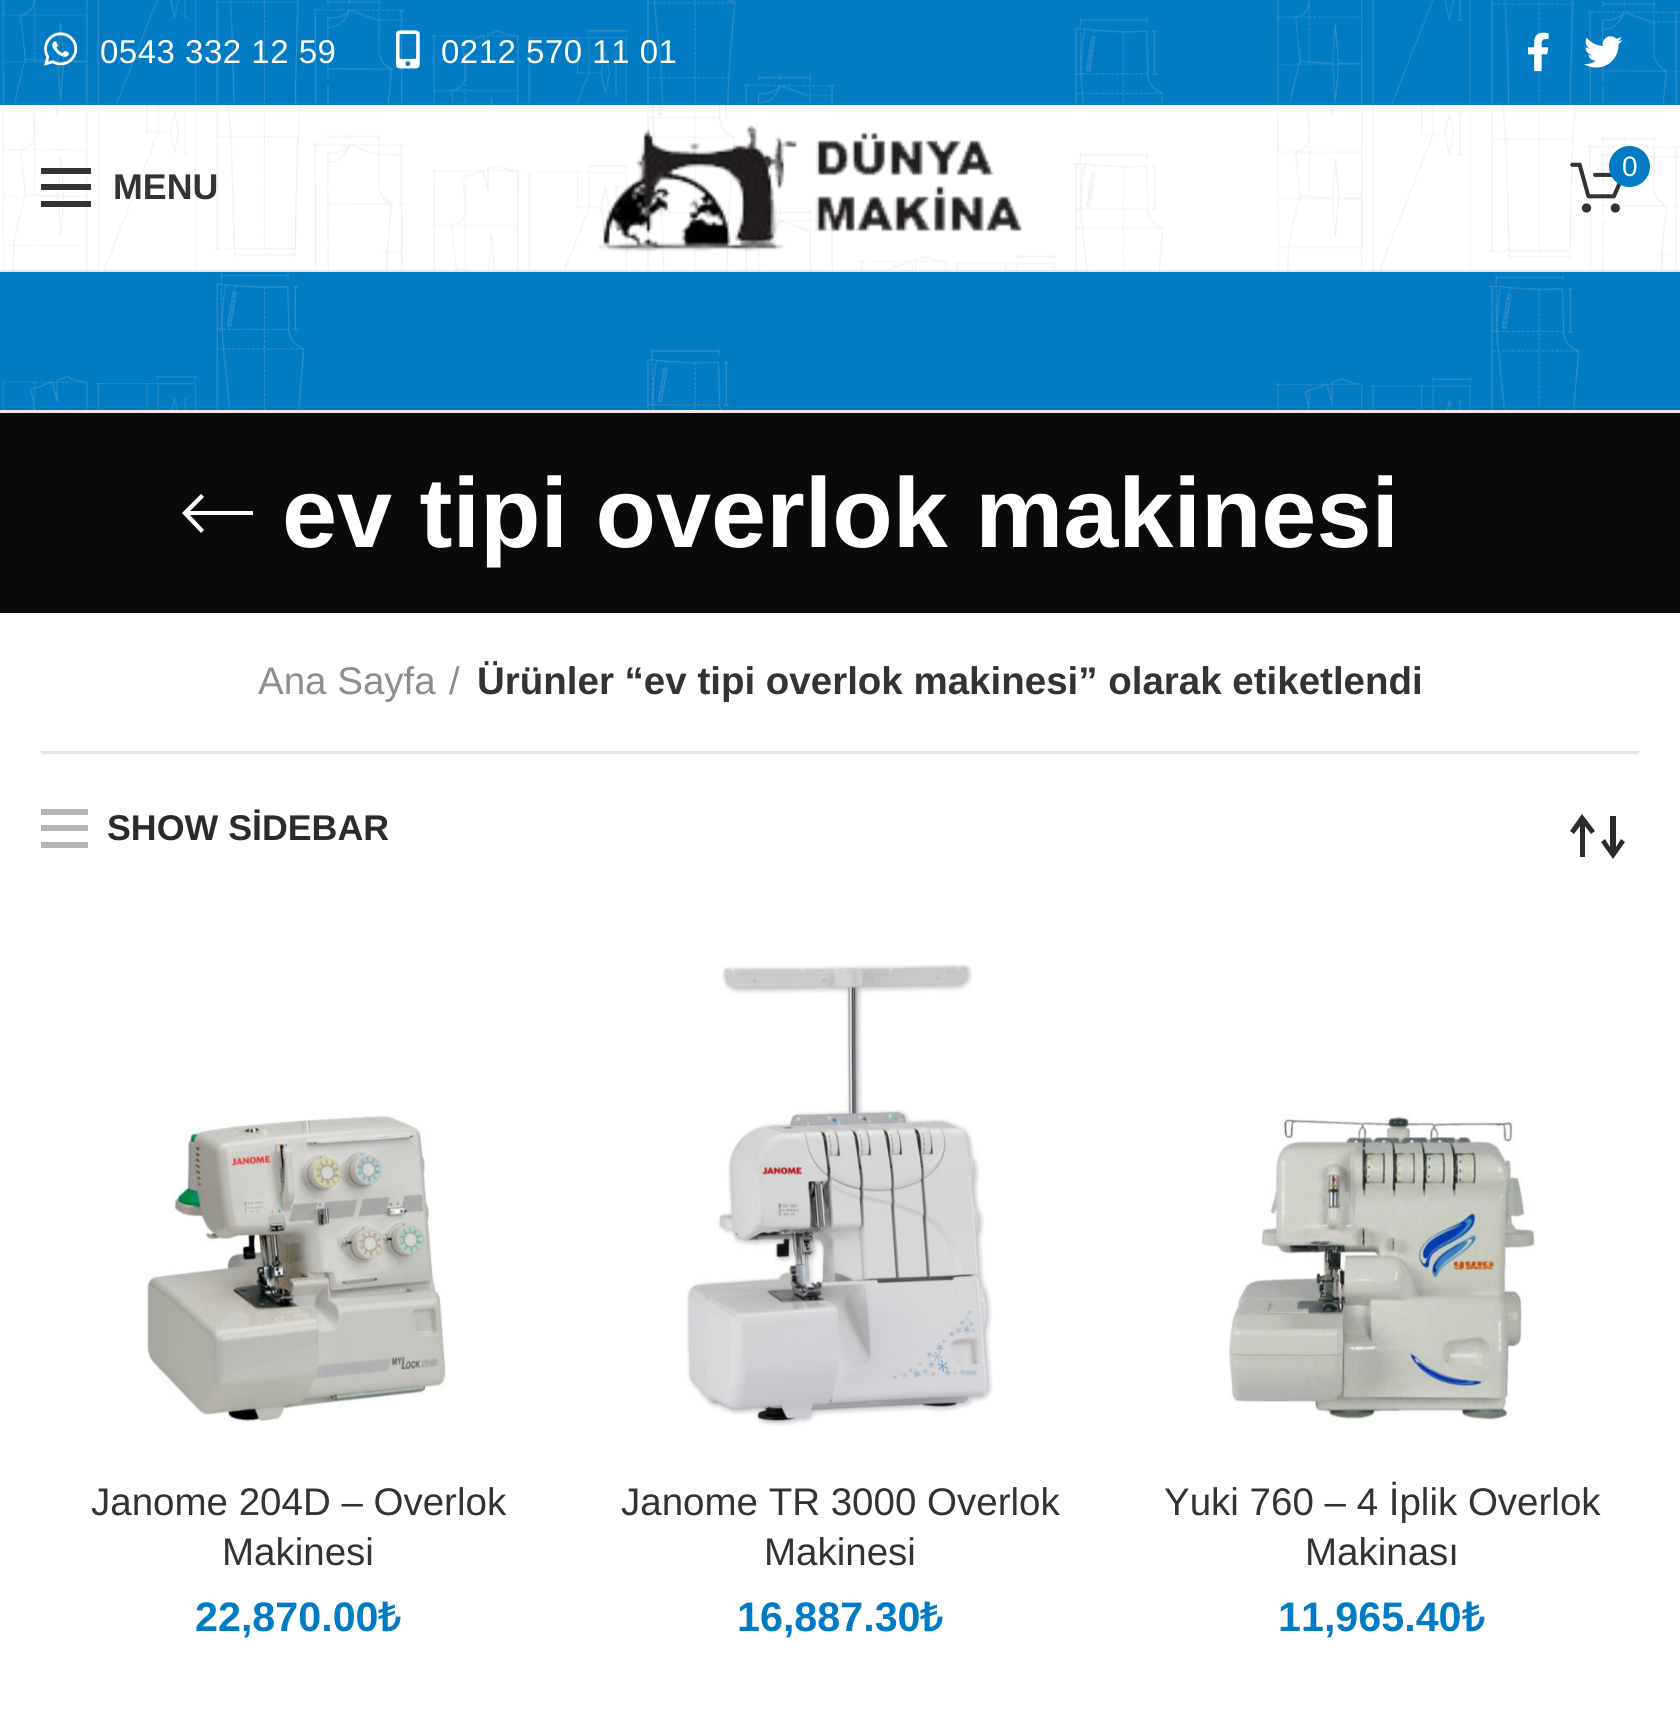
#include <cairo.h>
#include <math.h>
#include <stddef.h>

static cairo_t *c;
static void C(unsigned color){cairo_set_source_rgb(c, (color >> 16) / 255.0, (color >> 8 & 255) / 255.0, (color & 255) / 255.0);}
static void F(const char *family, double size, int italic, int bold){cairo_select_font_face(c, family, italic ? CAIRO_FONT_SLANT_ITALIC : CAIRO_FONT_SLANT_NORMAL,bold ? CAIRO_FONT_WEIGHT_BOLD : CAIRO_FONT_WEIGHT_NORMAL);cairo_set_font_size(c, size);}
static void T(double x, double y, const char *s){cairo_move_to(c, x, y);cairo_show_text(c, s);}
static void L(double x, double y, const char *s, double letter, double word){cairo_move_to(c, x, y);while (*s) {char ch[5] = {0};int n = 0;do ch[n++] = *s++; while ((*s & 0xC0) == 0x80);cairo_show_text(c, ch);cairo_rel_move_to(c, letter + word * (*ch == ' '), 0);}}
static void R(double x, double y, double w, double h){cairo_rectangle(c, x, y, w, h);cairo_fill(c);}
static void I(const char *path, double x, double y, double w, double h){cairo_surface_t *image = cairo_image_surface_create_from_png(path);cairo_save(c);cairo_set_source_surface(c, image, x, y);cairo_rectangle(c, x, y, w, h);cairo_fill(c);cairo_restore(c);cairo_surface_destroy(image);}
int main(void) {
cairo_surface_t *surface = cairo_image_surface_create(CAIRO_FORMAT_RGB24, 1680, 1711);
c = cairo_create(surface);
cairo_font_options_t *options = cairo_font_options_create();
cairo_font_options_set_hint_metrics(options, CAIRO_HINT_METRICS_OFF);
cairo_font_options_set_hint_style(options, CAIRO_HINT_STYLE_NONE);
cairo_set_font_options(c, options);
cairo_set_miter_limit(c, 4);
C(0xffffff);
cairo_paint(c);
C(0x007bc4);
R(0,0,1680,105);
I("1.png",2,0,1678,105);
I("2.png",44,32,34,34);
F("Liberation Sans",33,0,0);
C(0xffffff);
L(100,63,"0543 332 12 59",.5,0);
I("3.png",396,30,24,39);
L(441,63,"0212 570 11 01",.5,0);
I("4.png",1528,32,21,40);
I("5.png",1584,36,39,32);
I("6.png",2,105,1677,165);
C(0xe8e8e8);
R(0,270,1680,2);
I("7.png",598,125,425,127);
I("8.png",1570,162,51,51);
C(0x007bc4);
cairo_arc(c,1629.5,166.5,20.5,0,2 * M_PI);
cairo_fill(c);
F("Liberation Sans",28,0,0);
C(0xffffff);
T(1622,176,"0");
C(0x333333);
R(41,184,50,6);
R(41,168,50,6);
R(41,201,50,6);
F("Liberation Sans",35.75,0,1);
T(113,199,"MENU");
C(0x007bc4);
R(0,272,1680,138);
I("9.png",1,272,1579,138);
C(0xe8e8e8);
R(0,410,1680,3);
C(0x0a0a0a);
R(0,413,1680,200);
C(0xffffff);
cairo_new_path(c);
cairo_move_to(c,253,511);
cairo_line_to(c,253,515);
cairo_line_to(c,190,515);
cairo_line_to(c,204,530);
cairo_line_to(c,201,533);
cairo_line_to(c,182,513);
cairo_line_to(c,201,494);
cairo_line_to(c,204,497);
cairo_line_to(c,190,511);
cairo_close_path(c);
cairo_fill(c);
F("Liberation Sans",99,0,1);
T(282,547,"ev tipi overlok makinesi");
C(0xe6e6e6);
R(41,751,1598,3);
F("Liberation Sans",38.5,0,0);
C(0x8e8e8e);
T(258,694,"Ana Sayfa");
T(449,694,"/");
F("Liberation Sans",38.5,0,1);
C(0x333333);
T(477,694,"Ürünler “ev tipi overlok makinesi” olarak etiketlendi");
C(0xb3b3b3);
R(41,825,47,6);
R(41,809,47,6);
R(41,842,47,6);
F("Liberation Sans",35.75,0,1);
C(0x2d2a2a);
T(107,840,"SHOW SİDEBAR");
cairo_new_path(c);
cairo_move_to(c,1580,826);
cairo_line_to(c,1574,834);
cairo_line_to(c,1570,831);
cairo_line_to(c,1582,814);
cairo_line_to(c,1595,831);
cairo_line_to(c,1591,834);
cairo_line_to(c,1585,826);
cairo_line_to(c,1585,857);
cairo_line_to(c,1580,857);
cairo_close_path(c);
cairo_move_to(c,1616,847);
cairo_line_to(c,1621,839);
cairo_line_to(c,1625,842);
cairo_line_to(c,1613,859);
cairo_line_to(c,1601,842);
cairo_line_to(c,1605,839);
cairo_line_to(c,1610,847);
cairo_line_to(c,1610,816);
cairo_line_to(c,1616,816);
cairo_close_path(c);
cairo_fill(c);
I("10.png",145,1114,301,308);
F("Liberation Sans",38.5,0,0);
C(0x333333);
T(91,1515,"Janome 204D – Overlok");
T(222,1565,"Makinesi");
F("Liberation Sans",41.25,0,1);
C(0x007bc4);
T(195,1631,"22,870.00");
F("Noto Sans SemiBold",41.25,0,0);
T(378,1631,"₺");
I("11.png",686,964,307,462);
F("Liberation Sans",38.5,0,0);
C(0x333333);
T(621,1515,"Janome TR 3000 Overlok");
T(764,1565,"Makinesi");
F("Liberation Sans",41.25,0,1);
C(0x007bc4);
T(737,1631,"16,887.30");
F("Noto Sans SemiBold",41.25,0,0);
T(920,1631,"₺");
I("12.png",1228,1113,308,308);
F("Liberation Sans",38.5,0,0);
C(0x333333);
T(1164,1515,"Yuki 760 – 4 İplik Overlok");
T(1305,1565,"Makinası");
F("Liberation Sans",41.25,0,1);
C(0x007bc4);
T(1278,1631,"11,965.40");
F("Noto Sans SemiBold",41.25,0,0);
T(1462,1631,"₺");
cairo_surface_write_to_png(surface, "o.png");
cairo_font_options_destroy(options);
cairo_destroy(c);
cairo_surface_destroy(surface);
return 0;
}
